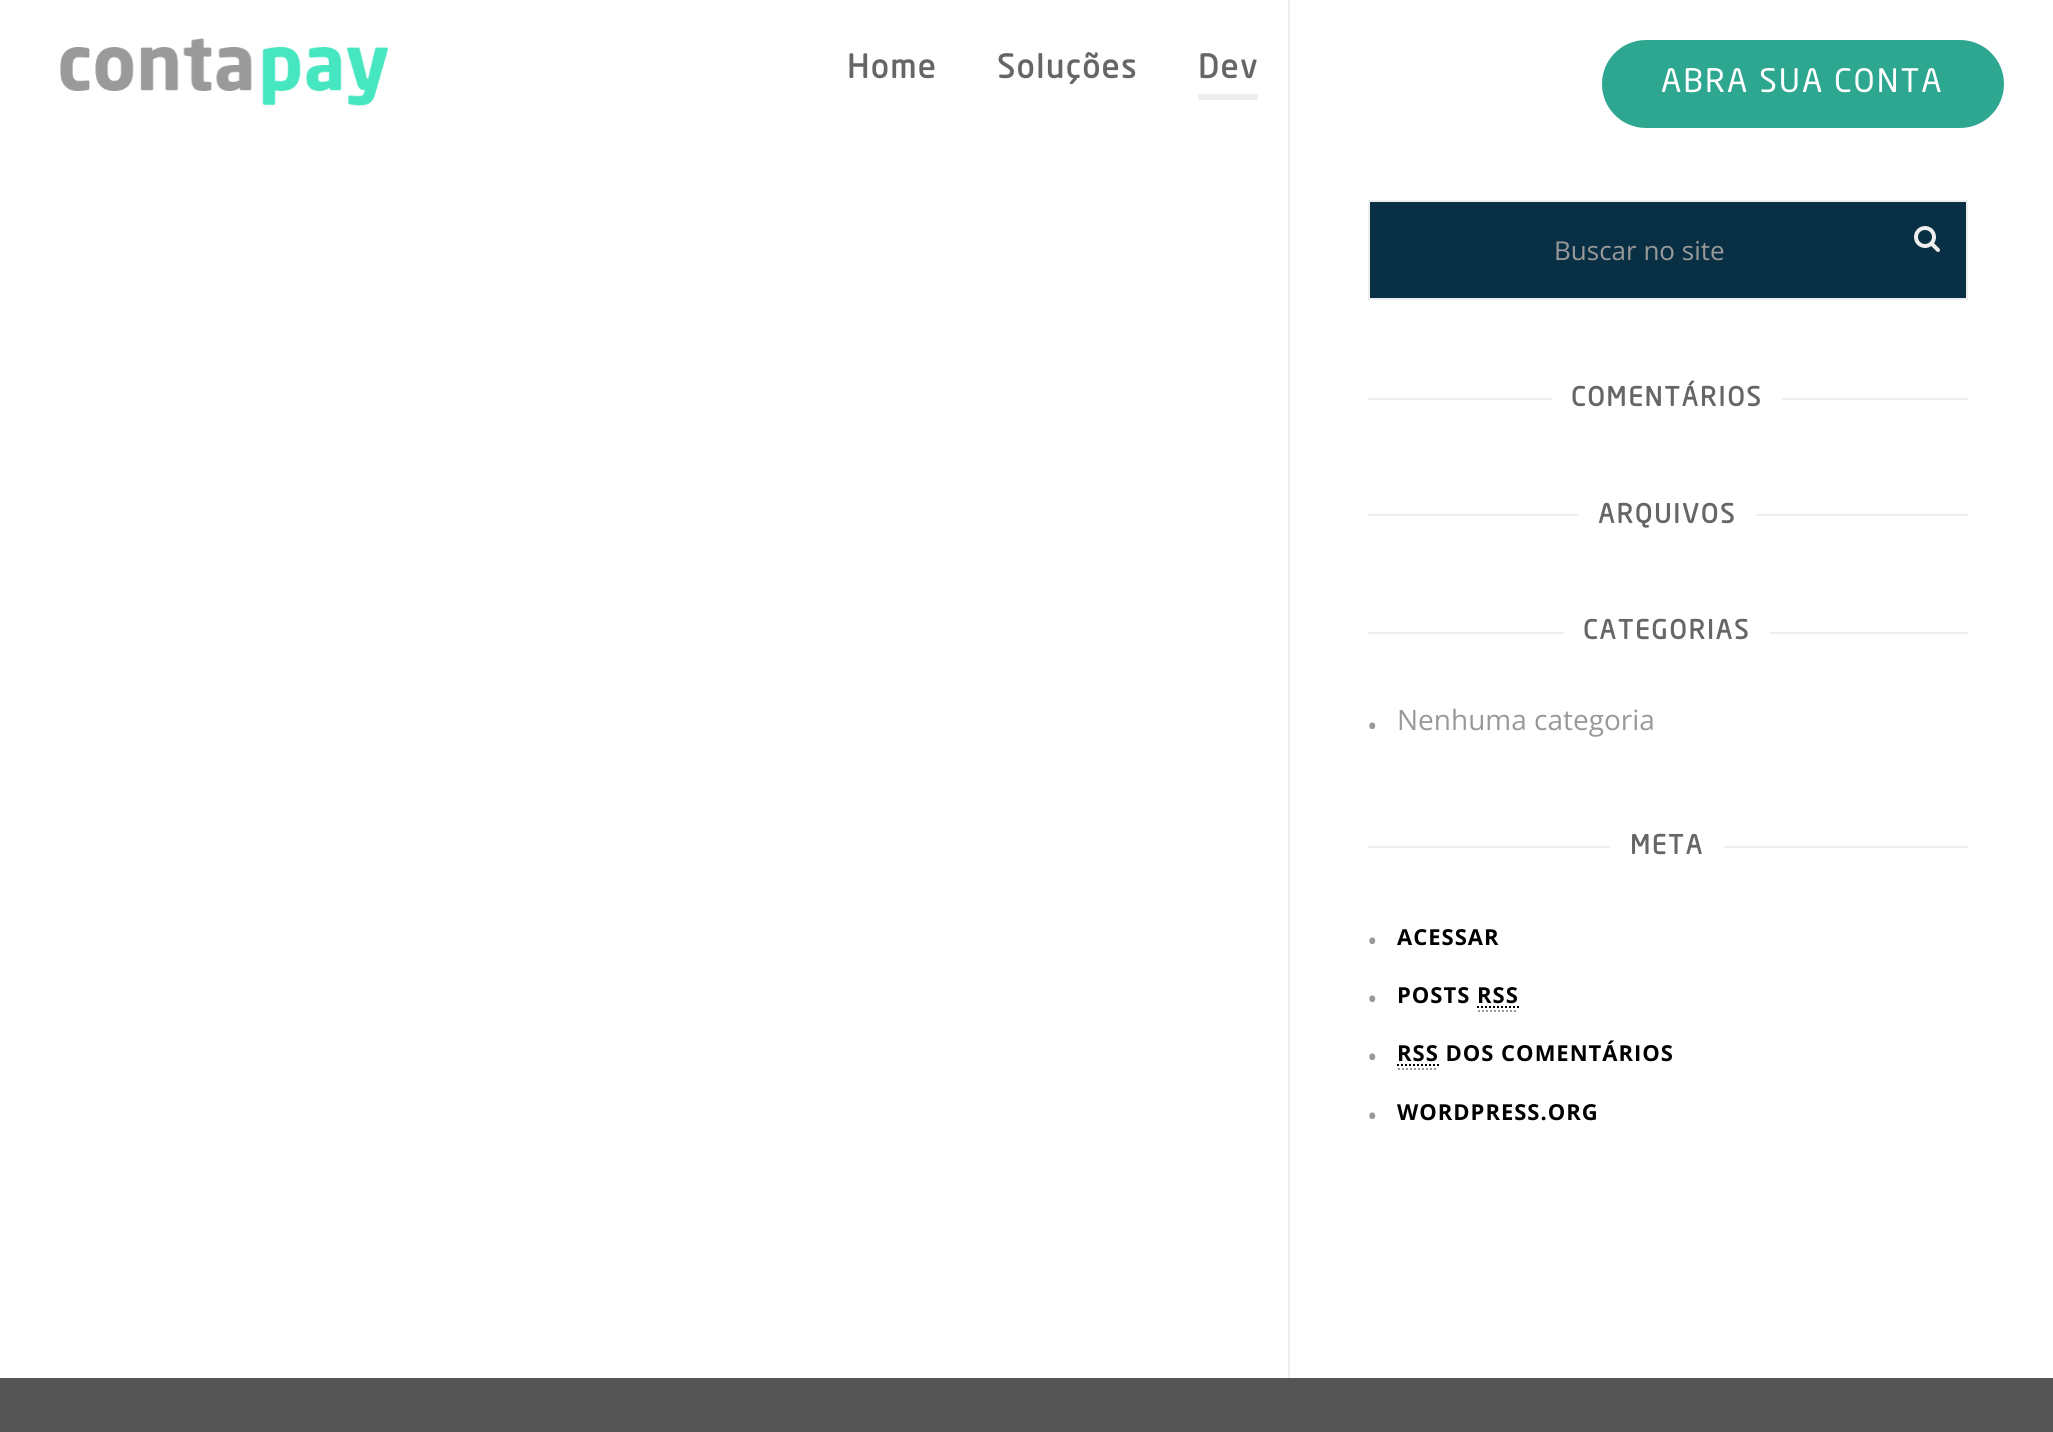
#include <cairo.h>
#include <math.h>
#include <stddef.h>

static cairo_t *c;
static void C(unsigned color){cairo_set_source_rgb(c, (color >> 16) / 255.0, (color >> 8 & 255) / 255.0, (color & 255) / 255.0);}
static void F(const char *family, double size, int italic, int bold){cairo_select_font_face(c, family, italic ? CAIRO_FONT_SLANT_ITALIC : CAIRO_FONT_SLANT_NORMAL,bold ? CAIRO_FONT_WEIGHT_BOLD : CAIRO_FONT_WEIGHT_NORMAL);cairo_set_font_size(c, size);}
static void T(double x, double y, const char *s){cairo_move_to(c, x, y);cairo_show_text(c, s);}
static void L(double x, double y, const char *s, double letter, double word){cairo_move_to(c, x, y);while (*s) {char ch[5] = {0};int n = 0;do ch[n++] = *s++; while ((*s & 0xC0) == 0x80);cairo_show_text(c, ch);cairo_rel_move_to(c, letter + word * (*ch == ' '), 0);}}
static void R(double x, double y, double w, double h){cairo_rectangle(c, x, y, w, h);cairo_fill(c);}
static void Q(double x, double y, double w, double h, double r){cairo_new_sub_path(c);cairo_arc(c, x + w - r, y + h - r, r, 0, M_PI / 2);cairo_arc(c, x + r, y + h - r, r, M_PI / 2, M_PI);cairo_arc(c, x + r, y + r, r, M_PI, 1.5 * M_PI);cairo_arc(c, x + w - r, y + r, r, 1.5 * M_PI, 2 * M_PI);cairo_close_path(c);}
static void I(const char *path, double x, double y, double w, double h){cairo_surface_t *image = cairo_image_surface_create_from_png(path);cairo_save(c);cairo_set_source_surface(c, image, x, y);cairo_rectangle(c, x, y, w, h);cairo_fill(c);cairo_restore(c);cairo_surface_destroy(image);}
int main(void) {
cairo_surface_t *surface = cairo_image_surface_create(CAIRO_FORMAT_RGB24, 2053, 1432);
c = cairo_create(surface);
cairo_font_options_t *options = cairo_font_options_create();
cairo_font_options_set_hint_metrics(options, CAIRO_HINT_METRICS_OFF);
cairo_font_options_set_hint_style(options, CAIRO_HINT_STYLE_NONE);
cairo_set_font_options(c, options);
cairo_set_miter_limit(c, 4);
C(0xffffff);
cairo_paint(c);
I("1.png",60,38,328,68);
F("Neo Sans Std",32,0,1);
C(0x666666);
L(847,78,"Home",2,0);
L(997,78,"Soluções",2,0);
L(1198,78,"Dev",2,0);
C(0xeeeeee);
R(1198,94,60,6);
C(0x2ea791);
Q(1602,40,402,88,44);
cairo_fill(c);
F("Neo Sans Std",32,0,0);
C(0xffffff);
L(1661,92,"ABRA SUA CONTA",2,0);
C(0xeeeeee);
R(1288,0,2,1378);
C(0x092f44);
cairo_rectangle(c,1369,201,598,98);
cairo_fill_preserve(c);
C(0xeeeeee);
cairo_stroke(c);
F("Open Sans",26,0,0);
C(0x999999);
T(1554,260,"Buscar no site");
I("2.png",1914,226,26,26);
C(0xeeeeee);
R(1368,398,600,2);
C(0xffffff);
R(1552,398,230,2);
F("Neo Sans Std",26,0,1);
C(0x666666);
L(1571,406,"COMENTÁRIOS",2,0);
C(0xeeeeee);
R(1368,514,600,2);
C(0xffffff);
R(1578,514,178,2);
C(0x666666);
L(1598,523,"ARQUIVOS",2,0);
C(0xeeeeee);
R(1368,632,600,2);
C(0xffffff);
R(1564,632,206,2);
C(0x666666);
L(1583,639,"CATEGORIAS",2,0);
F("Open Sans",28,0,0);
C(0x999999);
T(1367,736,"•");
T(1397,730,"Nenhuma categoria");
C(0xeeeeee);
R(1368,846,600,2);
C(0xffffff);
R(1610,846,114,2);
F("Neo Sans Std",26,0,1);
C(0x666666);
L(1630,854,"META",2,0);
F("Open Sans",28,0,0);
C(0x999999);
T(1367,951,"•");
F("Open Sans",22,0,1);
C(0x000000);
L(1397,945,"ACESSAR",1,0);
F("Open Sans",28,0,0);
C(0x999999);
T(1367,1009,"•");
F("Open Sans",22,0,1);
C(0x000000);
L(1397,1003,"POSTS RSS",1,0);
cairo_new_path(c);
cairo_move_to(c,1478,1011);
cairo_line_to(c,1518,1011);
C(0x999999);
cairo_set_dash(c,(double[]){2,2},2,0);
cairo_stroke(c);
cairo_new_path(c);
cairo_move_to(c,1477,1007);
cairo_line_to(c,1519,1007);
C(0x000000);
cairo_stroke(c);
F("Open Sans",28,0,0);
C(0x999999);
T(1367,1067,"•");
F("Open Sans",22,0,1);
C(0x000000);
L(1397,1061,"RSS DOS COMENTÁRIOS",1,0);
cairo_new_path(c);
cairo_move_to(c,1398,1069);
cairo_line_to(c,1438,1069);
C(0x999999);
cairo_stroke(c);
cairo_new_path(c);
cairo_move_to(c,1397,1065);
cairo_line_to(c,1439,1065);
C(0x000000);
cairo_stroke(c);
F("Open Sans",28,0,0);
C(0x999999);
T(1367,1126,"•");
F("Open Sans",22,0,1);
C(0x000000);
L(1397,1120,"WORDPRESS.ORG",1,0);
C(0x555555);
R(0,1378,2053,54);
cairo_surface_write_to_png(surface, "o.png");
cairo_font_options_destroy(options);
cairo_destroy(c);
cairo_surface_destroy(surface);
return 0;
}
